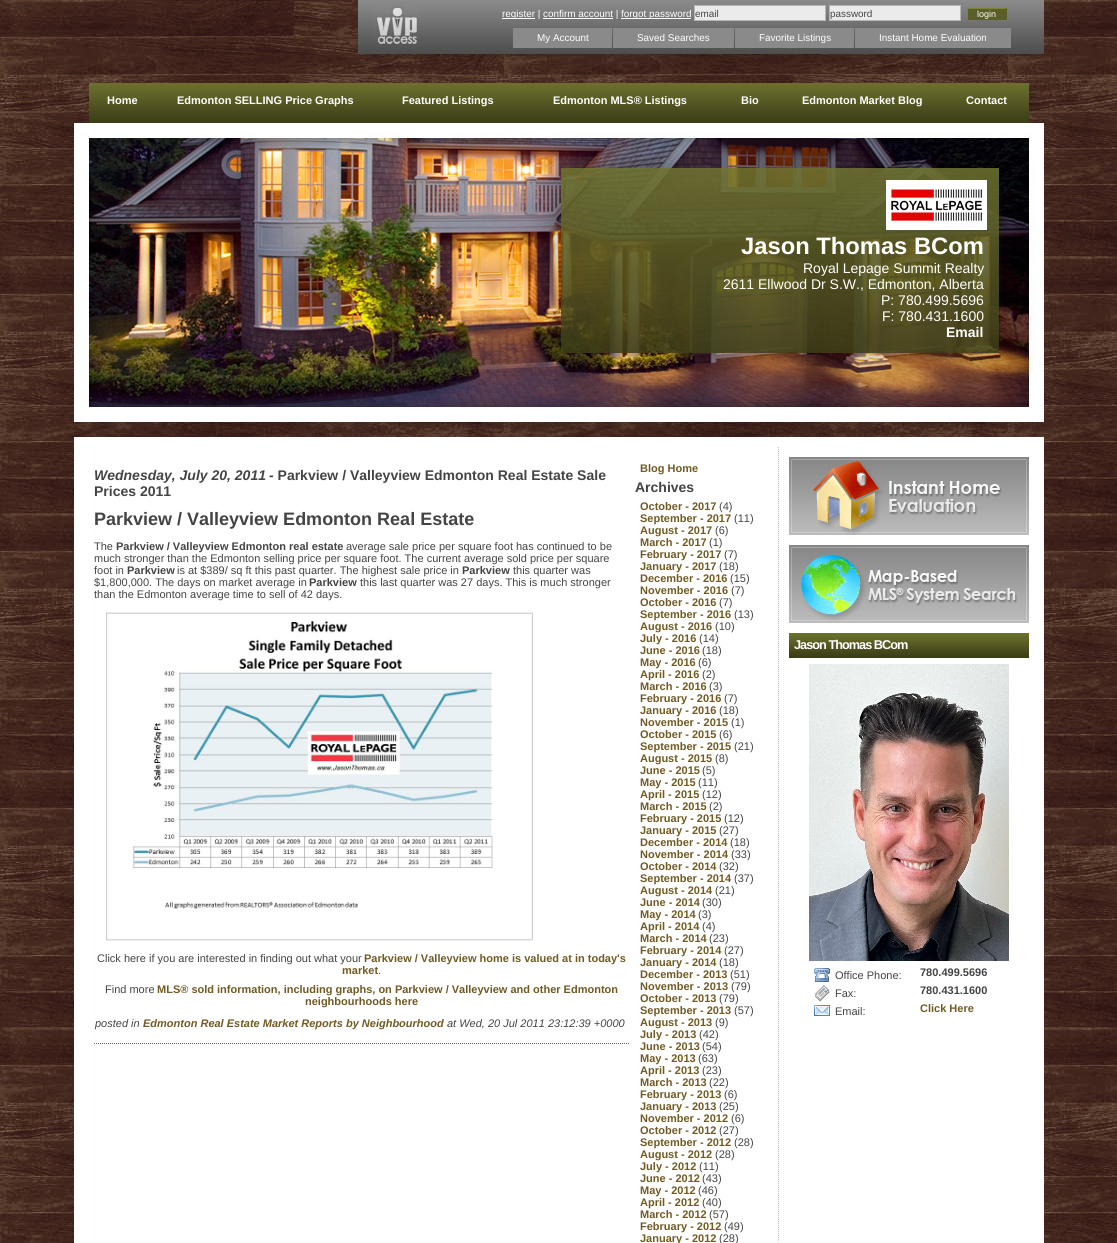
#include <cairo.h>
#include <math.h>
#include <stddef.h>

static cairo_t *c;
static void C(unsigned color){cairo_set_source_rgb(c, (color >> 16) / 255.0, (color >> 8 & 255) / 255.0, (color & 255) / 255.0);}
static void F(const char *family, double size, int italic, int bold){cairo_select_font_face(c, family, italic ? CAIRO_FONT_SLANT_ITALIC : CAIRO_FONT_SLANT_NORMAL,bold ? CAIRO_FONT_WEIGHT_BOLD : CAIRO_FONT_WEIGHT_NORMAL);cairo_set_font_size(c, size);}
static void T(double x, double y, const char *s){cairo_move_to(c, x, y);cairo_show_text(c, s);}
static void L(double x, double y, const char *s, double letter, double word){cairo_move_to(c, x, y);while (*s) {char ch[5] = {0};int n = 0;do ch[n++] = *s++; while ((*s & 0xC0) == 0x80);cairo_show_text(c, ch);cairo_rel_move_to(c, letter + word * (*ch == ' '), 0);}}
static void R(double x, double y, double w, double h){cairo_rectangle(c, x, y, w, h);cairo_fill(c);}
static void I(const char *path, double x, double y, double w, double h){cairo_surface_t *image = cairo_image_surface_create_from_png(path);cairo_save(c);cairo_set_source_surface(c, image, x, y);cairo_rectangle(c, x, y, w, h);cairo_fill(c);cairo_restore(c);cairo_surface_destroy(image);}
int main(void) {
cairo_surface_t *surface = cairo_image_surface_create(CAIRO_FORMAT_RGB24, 1117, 1243);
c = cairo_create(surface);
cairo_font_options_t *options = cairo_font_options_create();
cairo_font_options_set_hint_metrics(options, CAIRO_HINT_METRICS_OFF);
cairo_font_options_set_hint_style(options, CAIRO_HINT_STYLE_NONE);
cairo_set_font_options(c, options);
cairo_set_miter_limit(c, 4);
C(0xffffff);
cairo_paint(c);
I("1.png",0,0,1117,1243);
I("2.png",358,0,686,54);
I("3.png",373,5,46,39);
C(0xffffff);
R(502,18,33,1);
F("Liberation Sans",9.9,0,0);
T(502,17,"register | confirm account |");
R(621,18,70,1);
T(621,17,"forgot password");
C(0xebebeb);
cairo_rectangle(c,694.5,5.5,131,15);
cairo_fill_preserve(c);
C(0xb5b5b5);
cairo_set_line_width(c,1);
cairo_stroke(c);
C(0x444444);
T(695,17,"email");
C(0xebebeb);
cairo_rectangle(c,829.5,5.5,131,15);
cairo_fill_preserve(c);
C(0xb5b5b5);
cairo_stroke(c);
C(0x444444);
T(830,17,"password");
C(0x5b5e27);
R(968,9,38,11);
C(0x7d8235);
R(967,8,40,1);
C(0x5b5e27);
R(1006,8,1,12);
C(0x7d8235);
R(967,8,1,12);
F("Liberation Sans",9,0,0);
C(0xffffff);
T(977,17,"login");
R(543,18,70,1);
C(0x8a8a8a);
R(513,28,99,20);
F("Liberation Sans",9.9,0,0);
C(0xffffff);
T(537,41,"My Account");
C(0x8a8a8a);
R(613,28,121,20);
C(0xffffff);
T(637,41,"Saved Searches");
C(0x8a8a8a);
R(735,28,119,20);
C(0xffffff);
T(759,41,"Favorite Listings");
C(0x8a8a8a);
R(855,28,156,20);
C(0xffffff);
T(879,41,"Instant Home Evaluation");
I("4.png",89,83,940,40);
F("Liberation Sans",11,0,1);
T(107,104,"Home");
T(177,104,"Edmonton SELLING Price Graphs");
T(402,104,"Featured Listings");
T(553,104,"Edmonton MLS® Listings");
T(741,104,"Bio");
T(802,104,"Edmonton Market Blog");
T(966,104,"Contact");
I("5.png",74,123,970,299);
I("6.png",886,180,101,50);
F("Liberation Sans",23.75,0,1);
T(741,254,"Jason Thomas BCom");
F("Liberation Sans",14,0,0);
T(803,273,"Royal Lepage Summit Realty");
T(723,289,"2611 Ellwood Dr S.W., Edmonton, Alberta");
T(881,305,"P: 780.499.5696");
T(882,321,"F: 780.431.1600");
F("Liberation Sans",14,0,1);
T(946,337,"Email");
R(74,437,970,806);
I("7.png",778,447,7,795);
cairo_new_path(c);
cairo_move_to(c,94,1043.5);
cairo_line_to(c,630,1043.5);
C(0x666666);
cairo_set_dash(c,(double[]){1,1},2,0);
cairo_stroke(c);
F("Liberation Sans",14,1,1);
C(0x444444);
T(94,480,"Wednesday, July 20, 2011");
F("Liberation Sans",14,0,1);
T(269,480,"- Parkview / Valleyview Edmonton Real Estate Sale");
T(94,496,"Prices 2011");
F("Liberation Sans",18,0,1);
T(94,525,"Parkview / Valleyview Edmonton Real Estate");
F("Liberation Sans",11,0,0);
T(94,550,"The");
F("Liberation Sans",11,0,1);
T(116,550,"Parkview / Valleyview Edmonton real estate");
F("Liberation Sans",11,0,0);
T(346,550,"average sale price per square foot has continued to be");
T(94,562,"much stronger than the Edmonton selling price per square foot. The current average sold price per square");
T(94,574,"foot in");
F("Liberation Sans",11,0,1);
T(127,574,"Parkview");
F("Liberation Sans",11,0,0);
T(177,574,"is at $389/ sq ft this past quarter. The highest sale price in");
F("Liberation Sans",11,0,1);
T(462,574,"Parkview");
F("Liberation Sans",11,0,0);
T(513,574,"this quarter was");
T(94,586,"$1,800,000. The days on market average in");
F("Liberation Sans",11,0,1);
T(309,586,"Parkview");
F("Liberation Sans",11,0,0);
T(360,586,"this last quarter was 27 days. This is much stronger");
T(94,598,"than the Edmonton average time to sell of 42 days.");
I("8.png",106,612,427,329);
T(97,962,"Click here if you are interested in finding out what your");
F("Liberation Sans",11,0,1);
C(0x715a24);
T(364,962,"Parkview / Valleyview home is valued at in today's");
T(342,974,"market");
F("Liberation Sans",11,0,0);
C(0x444444);
T(378,974,".");
T(105,993,"Find more");
F("Liberation Sans",11,0,1);
C(0x715a24);
T(157,993,"MLS® sold information, including graphs, on Parkview / Valleyview and other Edmonton");
T(305,1005,"neighbourhoods here");
F("Liberation Sans",11,1,0);
C(0x444444);
T(95,1027,"posted in");
F("Liberation Sans",11,1,1);
C(0x715a24);
T(143,1027,"Edmonton Real Estate Market Reports by Neighbourhood");
F("Liberation Sans",11,1,0);
C(0x444444);
T(447,1027,"at Wed, 20 Jul 2011 23:12:39 +0000");
F("Liberation Sans",11,0,1);
C(0x715a24);
T(640,472,"Blog Home");
F("Liberation Sans",14,0,1);
C(0x444444);
T(635,492,"Archives");
F("Liberation Sans",11,0,1);
C(0x715a24);
T(640,510,"October - 2017");
F("Liberation Sans",11,0,0);
C(0x444444);
T(719,510,"(4)");
F("Liberation Sans",11,0,1);
C(0x715a24);
T(640,522,"September - 2017");
F("Liberation Sans",11,0,0);
C(0x444444);
T(734,522,"(11)");
F("Liberation Sans",11,0,1);
C(0x715a24);
T(640,534,"August - 2017");
F("Liberation Sans",11,0,0);
C(0x444444);
T(715,534,"(6)");
F("Liberation Sans",11,0,1);
C(0x715a24);
T(640,546,"March - 2017");
F("Liberation Sans",11,0,0);
C(0x444444);
T(709,546,"(1)");
F("Liberation Sans",11,0,1);
C(0x715a24);
T(640,558,"February - 2017");
F("Liberation Sans",11,0,0);
C(0x444444);
T(724,558,"(7)");
F("Liberation Sans",11,0,1);
C(0x715a24);
T(640,570,"January - 2017");
F("Liberation Sans",11,0,0);
C(0x444444);
T(719,570,"(18)");
F("Liberation Sans",11,0,1);
C(0x715a24);
T(640,582,"December - 2016");
F("Liberation Sans",11,0,0);
C(0x444444);
T(730,582,"(15)");
F("Liberation Sans",11,0,1);
C(0x715a24);
T(640,594,"November - 2016");
F("Liberation Sans",11,0,0);
C(0x444444);
T(731,594,"(7)");
F("Liberation Sans",11,0,1);
C(0x715a24);
T(640,606,"October - 2016");
F("Liberation Sans",11,0,0);
C(0x444444);
T(719,606,"(7)");
F("Liberation Sans",11,0,1);
C(0x715a24);
T(640,618,"September - 2016");
F("Liberation Sans",11,0,0);
C(0x444444);
T(734,618,"(13)");
F("Liberation Sans",11,0,1);
C(0x715a24);
T(640,630,"August - 2016");
F("Liberation Sans",11,0,0);
C(0x444444);
T(715,630,"(10)");
F("Liberation Sans",11,0,1);
C(0x715a24);
T(640,642,"July - 2016");
F("Liberation Sans",11,0,0);
C(0x444444);
T(699,642,"(14)");
F("Liberation Sans",11,0,1);
C(0x715a24);
T(640,654,"June - 2016");
F("Liberation Sans",11,0,0);
C(0x444444);
T(702,654,"(18)");
F("Liberation Sans",11,0,1);
C(0x715a24);
T(640,666,"May - 2016");
F("Liberation Sans",11,0,0);
C(0x444444);
T(698,666,"(6)");
F("Liberation Sans",11,0,1);
C(0x715a24);
T(640,678,"April - 2016");
F("Liberation Sans",11,0,0);
C(0x444444);
T(702,678,"(2)");
F("Liberation Sans",11,0,1);
C(0x715a24);
T(640,690,"March - 2016");
F("Liberation Sans",11,0,0);
C(0x444444);
T(709,690,"(3)");
F("Liberation Sans",11,0,1);
C(0x715a24);
T(640,702,"February - 2016");
F("Liberation Sans",11,0,0);
C(0x444444);
T(724,702,"(7)");
F("Liberation Sans",11,0,1);
C(0x715a24);
T(640,714,"January - 2016");
F("Liberation Sans",11,0,0);
C(0x444444);
T(719,714,"(18)");
F("Liberation Sans",11,0,1);
C(0x715a24);
T(640,726,"November - 2015");
F("Liberation Sans",11,0,0);
C(0x444444);
T(731,726,"(1)");
F("Liberation Sans",11,0,1);
C(0x715a24);
T(640,738,"October - 2015");
F("Liberation Sans",11,0,0);
C(0x444444);
T(719,738,"(6)");
F("Liberation Sans",11,0,1);
C(0x715a24);
T(640,750,"September - 2015");
F("Liberation Sans",11,0,0);
C(0x444444);
T(734,750,"(21)");
F("Liberation Sans",11,0,1);
C(0x715a24);
T(640,762,"August - 2015");
F("Liberation Sans",11,0,0);
C(0x444444);
T(715,762,"(8)");
F("Liberation Sans",11,0,1);
C(0x715a24);
T(640,774,"June - 2015");
F("Liberation Sans",11,0,0);
C(0x444444);
T(702,774,"(5)");
F("Liberation Sans",11,0,1);
C(0x715a24);
T(640,786,"May - 2015");
F("Liberation Sans",11,0,0);
C(0x444444);
T(698,786,"(11)");
F("Liberation Sans",11,0,1);
C(0x715a24);
T(640,798,"April - 2015");
F("Liberation Sans",11,0,0);
C(0x444444);
T(702,798,"(12)");
F("Liberation Sans",11,0,1);
C(0x715a24);
T(640,810,"March - 2015");
F("Liberation Sans",11,0,0);
C(0x444444);
T(709,810,"(2)");
F("Liberation Sans",11,0,1);
C(0x715a24);
T(640,822,"February - 2015");
F("Liberation Sans",11,0,0);
C(0x444444);
T(724,822,"(12)");
F("Liberation Sans",11,0,1);
C(0x715a24);
T(640,834,"January - 2015");
F("Liberation Sans",11,0,0);
C(0x444444);
T(719,834,"(27)");
F("Liberation Sans",11,0,1);
C(0x715a24);
T(640,846,"December - 2014");
F("Liberation Sans",11,0,0);
C(0x444444);
T(730,846,"(18)");
F("Liberation Sans",11,0,1);
C(0x715a24);
T(640,858,"November - 2014");
F("Liberation Sans",11,0,0);
C(0x444444);
T(731,858,"(33)");
F("Liberation Sans",11,0,1);
C(0x715a24);
T(640,870,"October - 2014");
F("Liberation Sans",11,0,0);
C(0x444444);
T(719,870,"(32)");
F("Liberation Sans",11,0,1);
C(0x715a24);
T(640,882,"September - 2014");
F("Liberation Sans",11,0,0);
C(0x444444);
T(734,882,"(37)");
F("Liberation Sans",11,0,1);
C(0x715a24);
T(640,894,"August - 2014");
F("Liberation Sans",11,0,0);
C(0x444444);
T(715,894,"(21)");
F("Liberation Sans",11,0,1);
C(0x715a24);
T(640,906,"June - 2014");
F("Liberation Sans",11,0,0);
C(0x444444);
T(702,906,"(30)");
F("Liberation Sans",11,0,1);
C(0x715a24);
T(640,918,"May - 2014");
F("Liberation Sans",11,0,0);
C(0x444444);
T(698,918,"(3)");
F("Liberation Sans",11,0,1);
C(0x715a24);
T(640,930,"April - 2014");
F("Liberation Sans",11,0,0);
C(0x444444);
T(702,930,"(4)");
F("Liberation Sans",11,0,1);
C(0x715a24);
T(640,942,"March - 2014");
F("Liberation Sans",11,0,0);
C(0x444444);
T(709,942,"(23)");
F("Liberation Sans",11,0,1);
C(0x715a24);
T(640,954,"February - 2014");
F("Liberation Sans",11,0,0);
C(0x444444);
T(724,954,"(27)");
F("Liberation Sans",11,0,1);
C(0x715a24);
T(640,966,"January - 2014");
F("Liberation Sans",11,0,0);
C(0x444444);
T(719,966,"(18)");
F("Liberation Sans",11,0,1);
C(0x715a24);
T(640,978,"December - 2013");
F("Liberation Sans",11,0,0);
C(0x444444);
T(730,978,"(51)");
F("Liberation Sans",11,0,1);
C(0x715a24);
T(640,990,"November - 2013");
F("Liberation Sans",11,0,0);
C(0x444444);
T(731,990,"(79)");
F("Liberation Sans",11,0,1);
C(0x715a24);
T(640,1002,"October - 2013");
F("Liberation Sans",11,0,0);
C(0x444444);
T(719,1002,"(79)");
F("Liberation Sans",11,0,1);
C(0x715a24);
T(640,1014,"September - 2013");
F("Liberation Sans",11,0,0);
C(0x444444);
T(734,1014,"(57)");
F("Liberation Sans",11,0,1);
C(0x715a24);
T(640,1026,"August - 2013");
F("Liberation Sans",11,0,0);
C(0x444444);
T(715,1026,"(9)");
F("Liberation Sans",11,0,1);
C(0x715a24);
T(640,1038,"July - 2013");
F("Liberation Sans",11,0,0);
C(0x444444);
T(699,1038,"(42)");
F("Liberation Sans",11,0,1);
C(0x715a24);
T(640,1050,"June - 2013");
F("Liberation Sans",11,0,0);
C(0x444444);
T(702,1050,"(54)");
F("Liberation Sans",11,0,1);
C(0x715a24);
T(640,1062,"May - 2013");
F("Liberation Sans",11,0,0);
C(0x444444);
T(698,1062,"(63)");
F("Liberation Sans",11,0,1);
C(0x715a24);
T(640,1074,"April - 2013");
F("Liberation Sans",11,0,0);
C(0x444444);
T(702,1074,"(23)");
F("Liberation Sans",11,0,1);
C(0x715a24);
T(640,1086,"March - 2013");
F("Liberation Sans",11,0,0);
C(0x444444);
T(709,1086,"(22)");
F("Liberation Sans",11,0,1);
C(0x715a24);
T(640,1098,"February - 2013");
F("Liberation Sans",11,0,0);
C(0x444444);
T(724,1098,"(6)");
F("Liberation Sans",11,0,1);
C(0x715a24);
T(640,1110,"January - 2013");
F("Liberation Sans",11,0,0);
C(0x444444);
T(719,1110,"(25)");
F("Liberation Sans",11,0,1);
C(0x715a24);
T(640,1122,"November - 2012");
F("Liberation Sans",11,0,0);
C(0x444444);
T(731,1122,"(6)");
F("Liberation Sans",11,0,1);
C(0x715a24);
T(640,1134,"October - 2012");
F("Liberation Sans",11,0,0);
C(0x444444);
T(719,1134,"(27)");
F("Liberation Sans",11,0,1);
C(0x715a24);
T(640,1146,"September - 2012");
F("Liberation Sans",11,0,0);
C(0x444444);
T(734,1146,"(28)");
F("Liberation Sans",11,0,1);
C(0x715a24);
T(640,1158,"August - 2012");
F("Liberation Sans",11,0,0);
C(0x444444);
T(715,1158,"(28)");
F("Liberation Sans",11,0,1);
C(0x715a24);
T(640,1170,"July - 2012");
F("Liberation Sans",11,0,0);
C(0x444444);
T(699,1170,"(11)");
F("Liberation Sans",11,0,1);
C(0x715a24);
T(640,1182,"June - 2012");
F("Liberation Sans",11,0,0);
C(0x444444);
T(702,1182,"(43)");
F("Liberation Sans",11,0,1);
C(0x715a24);
T(640,1194,"May - 2012");
F("Liberation Sans",11,0,0);
C(0x444444);
T(698,1194,"(46)");
F("Liberation Sans",11,0,1);
C(0x715a24);
T(640,1206,"April - 2012");
F("Liberation Sans",11,0,0);
C(0x444444);
T(702,1206,"(40)");
F("Liberation Sans",11,0,1);
C(0x715a24);
T(640,1218,"March - 2012");
F("Liberation Sans",11,0,0);
C(0x444444);
T(709,1218,"(57)");
F("Liberation Sans",11,0,1);
C(0x715a24);
T(640,1230,"February - 2012");
F("Liberation Sans",11,0,0);
C(0x444444);
T(724,1230,"(49)");
F("Liberation Sans",11,0,1);
C(0x715a24);
T(640,1242,"January - 2012");
F("Liberation Sans",11,0,0);
C(0x444444);
T(719,1242,"(28)");
I("9.png",789,457,240,78);
I("10.png",789,545,240,78);
I("11.png",789,633,240,25);
F("Liberation Sans",12.75,0,1);
C(0xffffff);
L(794,649,"Jason Thomas BCom",-1,0);
I("12.png",809,664,200,297);
I("13.png",814,968,16,14);
F("Liberation Sans",11,0,0);
C(0x444444);
T(835,979,"Office Phone:");
F("Liberation Sans",11,0,1);
T(920,976,"780.499.5696");
I("14.png",815,985,15,16);
F("Liberation Sans",11,0,0);
T(835,997,"Fax:");
F("Liberation Sans",11,0,1);
T(920,994,"780.431.1600");
I("15.png",814,1005,16,11);
F("Liberation Sans",11,0,0);
T(835,1015,"Email:");
F("Liberation Sans",11,0,1);
C(0x715a24);
T(920,1012,"Click Here");
cairo_surface_write_to_png(surface, "o.png");
cairo_font_options_destroy(options);
cairo_destroy(c);
cairo_surface_destroy(surface);
return 0;
}
